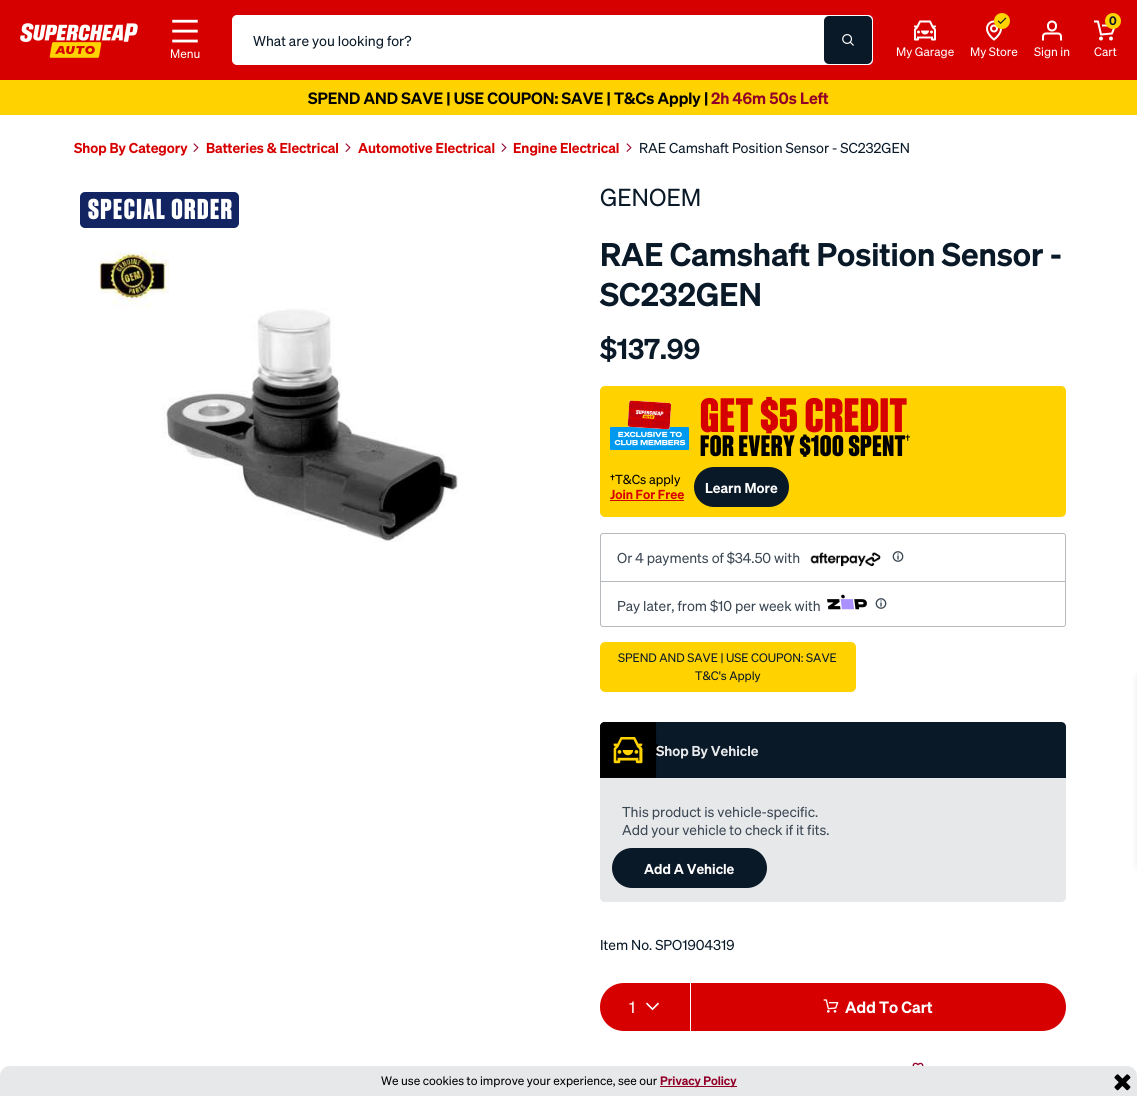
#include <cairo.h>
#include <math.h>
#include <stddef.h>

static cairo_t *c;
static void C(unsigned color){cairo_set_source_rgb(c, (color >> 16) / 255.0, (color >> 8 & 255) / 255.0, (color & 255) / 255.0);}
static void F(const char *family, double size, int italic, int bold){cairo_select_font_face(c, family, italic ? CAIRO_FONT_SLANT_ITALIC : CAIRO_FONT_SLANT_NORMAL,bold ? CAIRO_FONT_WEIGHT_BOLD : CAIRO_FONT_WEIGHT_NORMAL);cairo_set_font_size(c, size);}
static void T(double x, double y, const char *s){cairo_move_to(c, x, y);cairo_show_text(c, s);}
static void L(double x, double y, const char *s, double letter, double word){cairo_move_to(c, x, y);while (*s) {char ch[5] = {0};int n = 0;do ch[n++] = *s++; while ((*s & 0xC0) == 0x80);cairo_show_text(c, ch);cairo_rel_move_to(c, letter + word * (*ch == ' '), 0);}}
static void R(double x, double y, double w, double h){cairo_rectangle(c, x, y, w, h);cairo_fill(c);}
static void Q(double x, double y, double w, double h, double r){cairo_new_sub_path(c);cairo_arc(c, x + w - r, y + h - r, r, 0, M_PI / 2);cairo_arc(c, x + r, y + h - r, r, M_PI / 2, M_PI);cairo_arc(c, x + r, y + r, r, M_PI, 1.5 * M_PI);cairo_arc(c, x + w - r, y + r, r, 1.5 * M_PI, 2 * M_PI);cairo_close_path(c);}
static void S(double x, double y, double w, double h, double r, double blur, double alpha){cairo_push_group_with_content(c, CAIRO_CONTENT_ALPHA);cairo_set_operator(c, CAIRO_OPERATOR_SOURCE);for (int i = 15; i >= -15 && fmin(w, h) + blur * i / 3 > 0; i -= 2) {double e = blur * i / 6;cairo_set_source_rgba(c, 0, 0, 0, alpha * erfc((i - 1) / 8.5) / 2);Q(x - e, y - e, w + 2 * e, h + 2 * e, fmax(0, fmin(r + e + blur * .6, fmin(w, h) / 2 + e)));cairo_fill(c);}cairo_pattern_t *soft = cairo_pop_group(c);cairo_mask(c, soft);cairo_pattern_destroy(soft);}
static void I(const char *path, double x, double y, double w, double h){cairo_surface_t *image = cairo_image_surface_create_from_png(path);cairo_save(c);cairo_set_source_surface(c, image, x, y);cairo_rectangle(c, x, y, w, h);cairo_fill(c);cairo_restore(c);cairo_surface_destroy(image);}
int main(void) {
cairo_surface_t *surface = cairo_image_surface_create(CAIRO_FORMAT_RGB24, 1137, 1096);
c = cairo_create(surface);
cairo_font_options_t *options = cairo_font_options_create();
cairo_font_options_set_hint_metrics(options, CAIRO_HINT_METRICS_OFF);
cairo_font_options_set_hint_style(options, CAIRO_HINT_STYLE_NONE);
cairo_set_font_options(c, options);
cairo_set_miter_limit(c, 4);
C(0xffffff);
cairo_paint(c);
C(0xd70000);
R(0,0,1137,80);
I("1.png",20,23,118,35);
C(0xffffff);
Q(232.5,15.5,640,49,4.5);
cairo_fill_preserve(c);
cairo_set_line_width(c,1);
cairo_stroke(c);
F("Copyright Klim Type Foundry",14,0,0);
C(0x0a1928);
T(253,46,"What are you looking for?");
Q(824,16,48,48,5);
cairo_fill(c);
I("2.png",842,34,12,12);
I("3.png",1094,20,22,21);
C(0xffd200);
cairo_arc(c,1113,21,8,0,2 * M_PI);
cairo_fill(c);
F("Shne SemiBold",12,0,0);
C(0x0a1928);
T(1109,25,"0");
F("Copyright Klim Type Foundry",12,0,0);
C(0xffffff);
T(1094,56,"Cart");
I("4.png",172,19,26,24);
T(170,58,"Menu");
I("5.png",914,20,22,21);
T(896,56,"My Garage");
I("7.png",986,20,16,21);
C(0xffd200);
cairo_arc(c,1002,21,8,0,2 * M_PI);
cairo_fill(c);
I("6.png",997,17,10,7);
C(0xffffff);
T(970,56,"My Store");
I("8.png",1042,20,20,21);
T(1034,56,"Sign in");
C(0xffd200);
R(0,80,1137,35);
F("Shne SemiBold",16,0,0);
C(0x000000);
T(308,104,"SPEND AND SAVE | USE COUPON: SAVE | T&Cs Apply |");
C(0x910028);
T(711,104,"2h 46m 50s Left");
F("Shne SemiBold",14,0,0);
C(0xd70000);
T(74,153,"Shop By Category");
I("9.png",193,143,6,9);
T(206,153,"Batteries & Electrical");
I("9.png",345,143,6,9);
T(358,153,"Automotive Electrical");
I("9.png",501,143,6,9);
T(513,153,"Engine Electrical");
I("9.png",626,143,6,9);
F("Copyright Klim Type Foundry",14,0,0);
C(0x0a1928);
T(639,153,"RAE Camshaft Position Sensor - SC232GEN");
C(0x122461);
Q(80,192,159,36,5);
cairo_fill(c);
F("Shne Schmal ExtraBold",28,0,0);
C(0xffffff);
L(88,219,"SPECIAL ORDER",1.4,0);
I("10.png",99,251,360,291);
F("Copyright Klim Type Foundry",24,0,0);
C(0x0a1928);
T(600,206,"GENOEM");
F("Shne SemiBold",32,0,0);
T(600,266,"RAE Camshaft Position Sensor -");
T(600,306,"SC232GEN");
F("Shne SemiBold",28,0,0);
T(600,359,"$137.99");
C(0xffd200);
Q(600,386,466,131,5);
cairo_fill(c);
I("11.png",610,400,79,50);
F("Shne Schmal ExtraBold",47,0,0);
C(0xd70000);
L(700,432,"GET $5 CREDIT",.5,0);
F("Shne Schmal ExtraBold",28.75,0,0);
C(0x000000);
L(700,456,"FOR EVERY $100 SPENT",.5,0);
F("Copyright Klim Type Foundry",14,0,0);
L(905,445,"†",.5,0);
F("Copyright Klim Type Foundry",12.75,0,0);
T(610,484,"†T&Cs apply");
F("Shne SemiBold",12.75,0,0);
C(0xd70000);
T(610,499,"Join For Free");
R(610,500,74,1);
C(0x0a1928);
Q(694,467,95,40,20);
cairo_fill(c);
F("Shne SemiBold",14,0,0);
C(0xffffff);
T(705,493,"Learn More");
Q(600.5,533.5,465,93,2.5);
C(0xb6babe);
cairo_stroke(c);
F("Copyright Klim Type Foundry",14,0,0);
C(0x3b4753);
T(617,563,"Or 4 payments of $34.50 with");
I("12.png",810,552,71,15);
I("13.png",892,551,12,11);
C(0xb6babe);
R(601,581,464,1);
C(0x3b4753);
T(617,611,"Pay later, from $10 per week with");
I("14.png",827,594,40,16);
I("13.png",875,598,12,11);
C(0xffd200);
Q(601.5,643.5,253,47,3.5);
cairo_fill_preserve(c);
cairo_set_line_width(c,3);
cairo_stroke(c);
F("Copyright Klim Type Foundry",12,0,0);
C(0x0a1928);
T(618,662,"SPEND AND SAVE | USE COUPON: SAVE");
T(695,680,"T&C's Apply");
cairo_new_path(c);
cairo_move_to(c,605,722);
cairo_line_to(c,1061,722);
cairo_curve_to(c,1064,722,1066,724,1066,727);
cairo_line_to(c,1066,778);
cairo_line_to(c,600,778);
cairo_line_to(c,600,727);
cairo_curve_to(c,600,724,602,722,605,722);
cairo_close_path(c);
cairo_fill(c);
I("15.png",600,722,62,56);
F("Shne SemiBold",14,0,0);
C(0xe7e8ea);
T(656,756,"Shop By Vehicle");
cairo_new_path(c);
cairo_move_to(c,600,778);
cairo_line_to(c,1066,778);
cairo_line_to(c,1066,897);
cairo_curve_to(c,1066,900,1064,902,1061,902);
cairo_line_to(c,605,902);
cairo_curve_to(c,602,902,600,900,600,897);
cairo_close_path(c);
cairo_fill(c);
F("Copyright Klim Type Foundry",14,0,0);
C(0x3b4753);
T(622,817,"This product is vehicle-specific.");
T(622,835,"Add your vehicle to check if it fits.");
C(0x0a1928);
Q(612,848,155,40,20);
cairo_fill(c);
F("Shne SemiBold",14,0,0);
C(0xffffff);
T(644,874,"Add A Vehicle");
F("Copyright Klim Type Foundry",14,0,0);
C(0x0a1928);
T(600,950,"Item No. SPO1904319");
C(0xd70000);
cairo_new_path(c);
cairo_move_to(c,624,983);
cairo_line_to(c,690,983);
cairo_line_to(c,690,1031);
cairo_line_to(c,624,1031);
cairo_curve_to(c,610.5,1031,600,1020.5,600,1007);
cairo_curve_to(c,600,993.5,610.5,983,624,983);
cairo_close_path(c);
cairo_fill(c);
F("Copyright Klim Type Foundry",16,0,0);
C(0xffffff);
T(629,1013,"1");
I("16.png",646,1002,13,9);
C(0xd70000);
cairo_new_path(c);
cairo_move_to(c,691,983);
cairo_line_to(c,1042,983);
cairo_curve_to(c,1055.5,983,1066,993.5,1066,1007);
cairo_curve_to(c,1066,1020.5,1055.5,1031,1042,1031);
cairo_line_to(c,691,1031);
cairo_close_path(c);
cairo_fill(c);
I("17.png",823,999,16,14);
F("Shne SemiBold",16,0,0);
C(0xffffff);
T(845,1013,"Add To Cart");
I("18.png",912,1062,12,4);
C(0x0a1928);
S(1137,671,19,200,10,3,.1);
C(0xe7e8ea);
cairo_new_path(c);
cairo_move_to(c,10,1066);
cairo_line_to(c,1127,1066);
cairo_curve_to(c,1132.5,1066,1137,1070.5,1137,1076);
cairo_line_to(c,1137,1096);
cairo_line_to(c,0,1096);
cairo_line_to(c,0,1076);
cairo_curve_to(c,0,1070.5,4.5,1066,10,1066);
cairo_close_path(c);
cairo_fill(c);
F("Copyright Klim Type Foundry",12,0,0);
C(0x000000);
T(381,1085,"We use cookies to improve your experience, see our");
C(0x910028);
R(660,1086,77,1);
F("Shne SemiBold",12,0,0);
T(660,1085,"Privacy Policy");
I("19.png",1114,1074,17,17);
cairo_surface_write_to_png(surface, "o.png");
cairo_font_options_destroy(options);
cairo_destroy(c);
cairo_surface_destroy(surface);
return 0;
}
